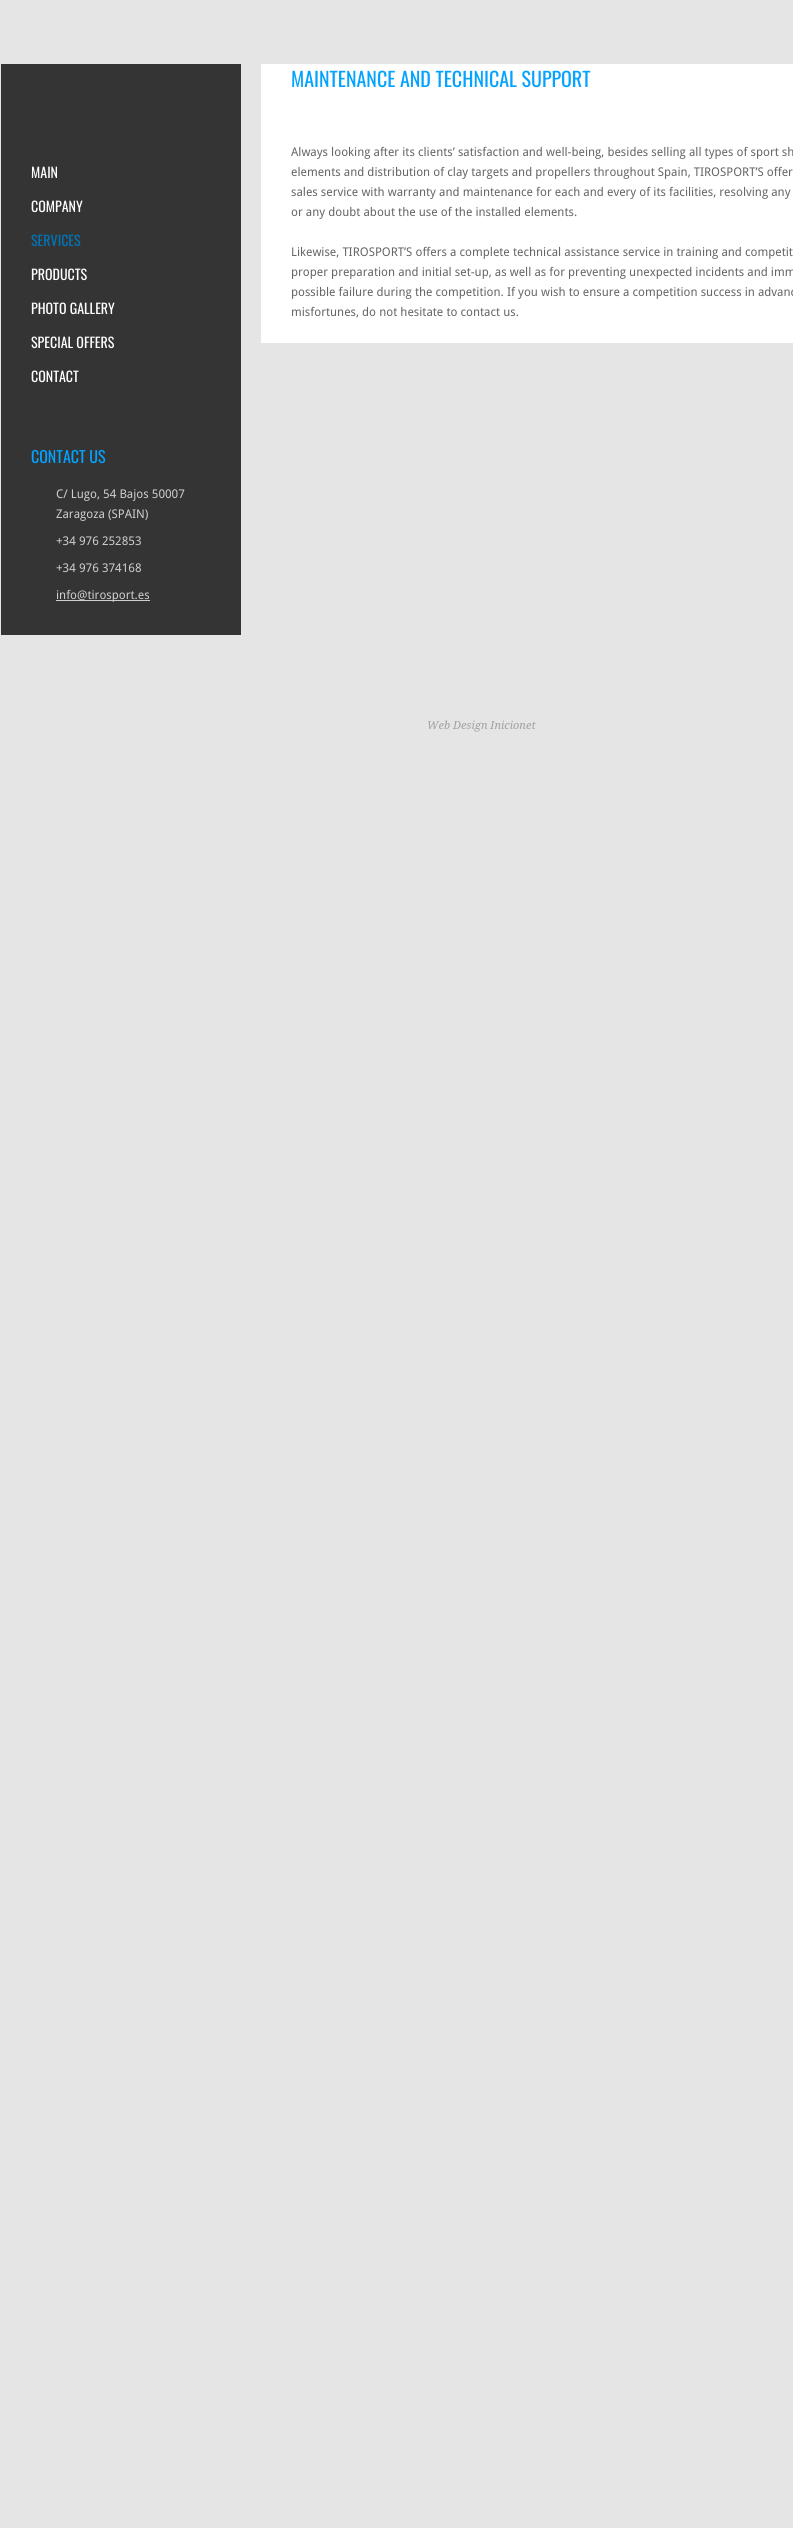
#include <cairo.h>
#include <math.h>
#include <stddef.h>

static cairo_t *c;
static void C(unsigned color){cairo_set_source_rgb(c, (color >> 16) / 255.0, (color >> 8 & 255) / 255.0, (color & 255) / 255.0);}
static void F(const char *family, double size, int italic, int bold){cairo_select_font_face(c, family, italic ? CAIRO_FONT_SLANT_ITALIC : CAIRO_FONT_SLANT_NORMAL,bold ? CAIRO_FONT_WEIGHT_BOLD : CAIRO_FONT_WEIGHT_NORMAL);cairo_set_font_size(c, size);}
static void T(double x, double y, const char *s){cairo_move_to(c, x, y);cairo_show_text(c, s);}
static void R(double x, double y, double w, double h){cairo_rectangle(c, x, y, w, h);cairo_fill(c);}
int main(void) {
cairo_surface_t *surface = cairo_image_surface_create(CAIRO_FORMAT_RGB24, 793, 2528);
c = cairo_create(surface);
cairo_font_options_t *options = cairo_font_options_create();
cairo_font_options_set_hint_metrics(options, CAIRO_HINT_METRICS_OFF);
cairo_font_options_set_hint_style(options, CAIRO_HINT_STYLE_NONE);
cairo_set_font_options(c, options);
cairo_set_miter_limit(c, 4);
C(0xe5e5e5);
cairo_paint(c);
C(0x343434);
R(1,64,240,571);
F("Oswald",14,0,0);
C(0xffffff);
T(31,178,"MAIN");
T(31,212,"COMPANY");
C(0x0074b6);
T(31,246,"SERVICES");
C(0xffffff);
T(31,280,"PRODUCTS");
T(31,314,"PHOTO GALLERY");
T(31,348,"SPECIAL OFFERS");
T(31,382,"CONTACT");
F("Oswald",16,0,0);
C(0x03a3ff);
T(31,463,"CONTACT US");
F("Droid Sans",12,0,0);
C(0xcecece);
T(56,498,"C/ Lugo, 54 Bajos 50007");
T(56,518,"Zaragoza (SPAIN)");
T(56,545,"+34 976 252853");
T(56,572,"+34 976 374168");
R(56,600,94,1);
T(56,599,"info@tirosport.es");
C(0xffffff);
R(261,64,532,279);
F("Oswald",20,0,0);
C(0x03a3ff);
T(291,87,"MAINTENANCE AND TECHNICAL SUPPORT");
F("Droid Sans",12,0,0);
C(0x666666);
T(291,156,"Always looking after its clients’ satisfaction and well-being, besides selling all types of sport sh");
T(291,176,"elements and distribution of clay targets and propellers throughout Spain, TIROSPORT’S offer");
T(291,196,"sales service with warranty and maintenance for each and every of its facilities, resolving any");
T(291,216,"or any doubt about the use of the installed elements.");
T(291,256,"Likewise, TIROSPORT’S offers a complete technical assistance service in training and competit");
T(291,276,"proper preparation and initial set-up, as well as for preventing unexpected incidents and imm");
T(291,296,"possible failure during the competition. If you wish to ensure a competition success in advanc");
T(291,316,"misfortunes, do not hesitate to contact us.");
F("Droid Serif",11,1,0);
C(0xa1a1a1);
T(427,729,"Web Design Inicionet");
cairo_surface_write_to_png(surface, "o.png");
cairo_font_options_destroy(options);
cairo_destroy(c);
cairo_surface_destroy(surface);
return 0;
}
